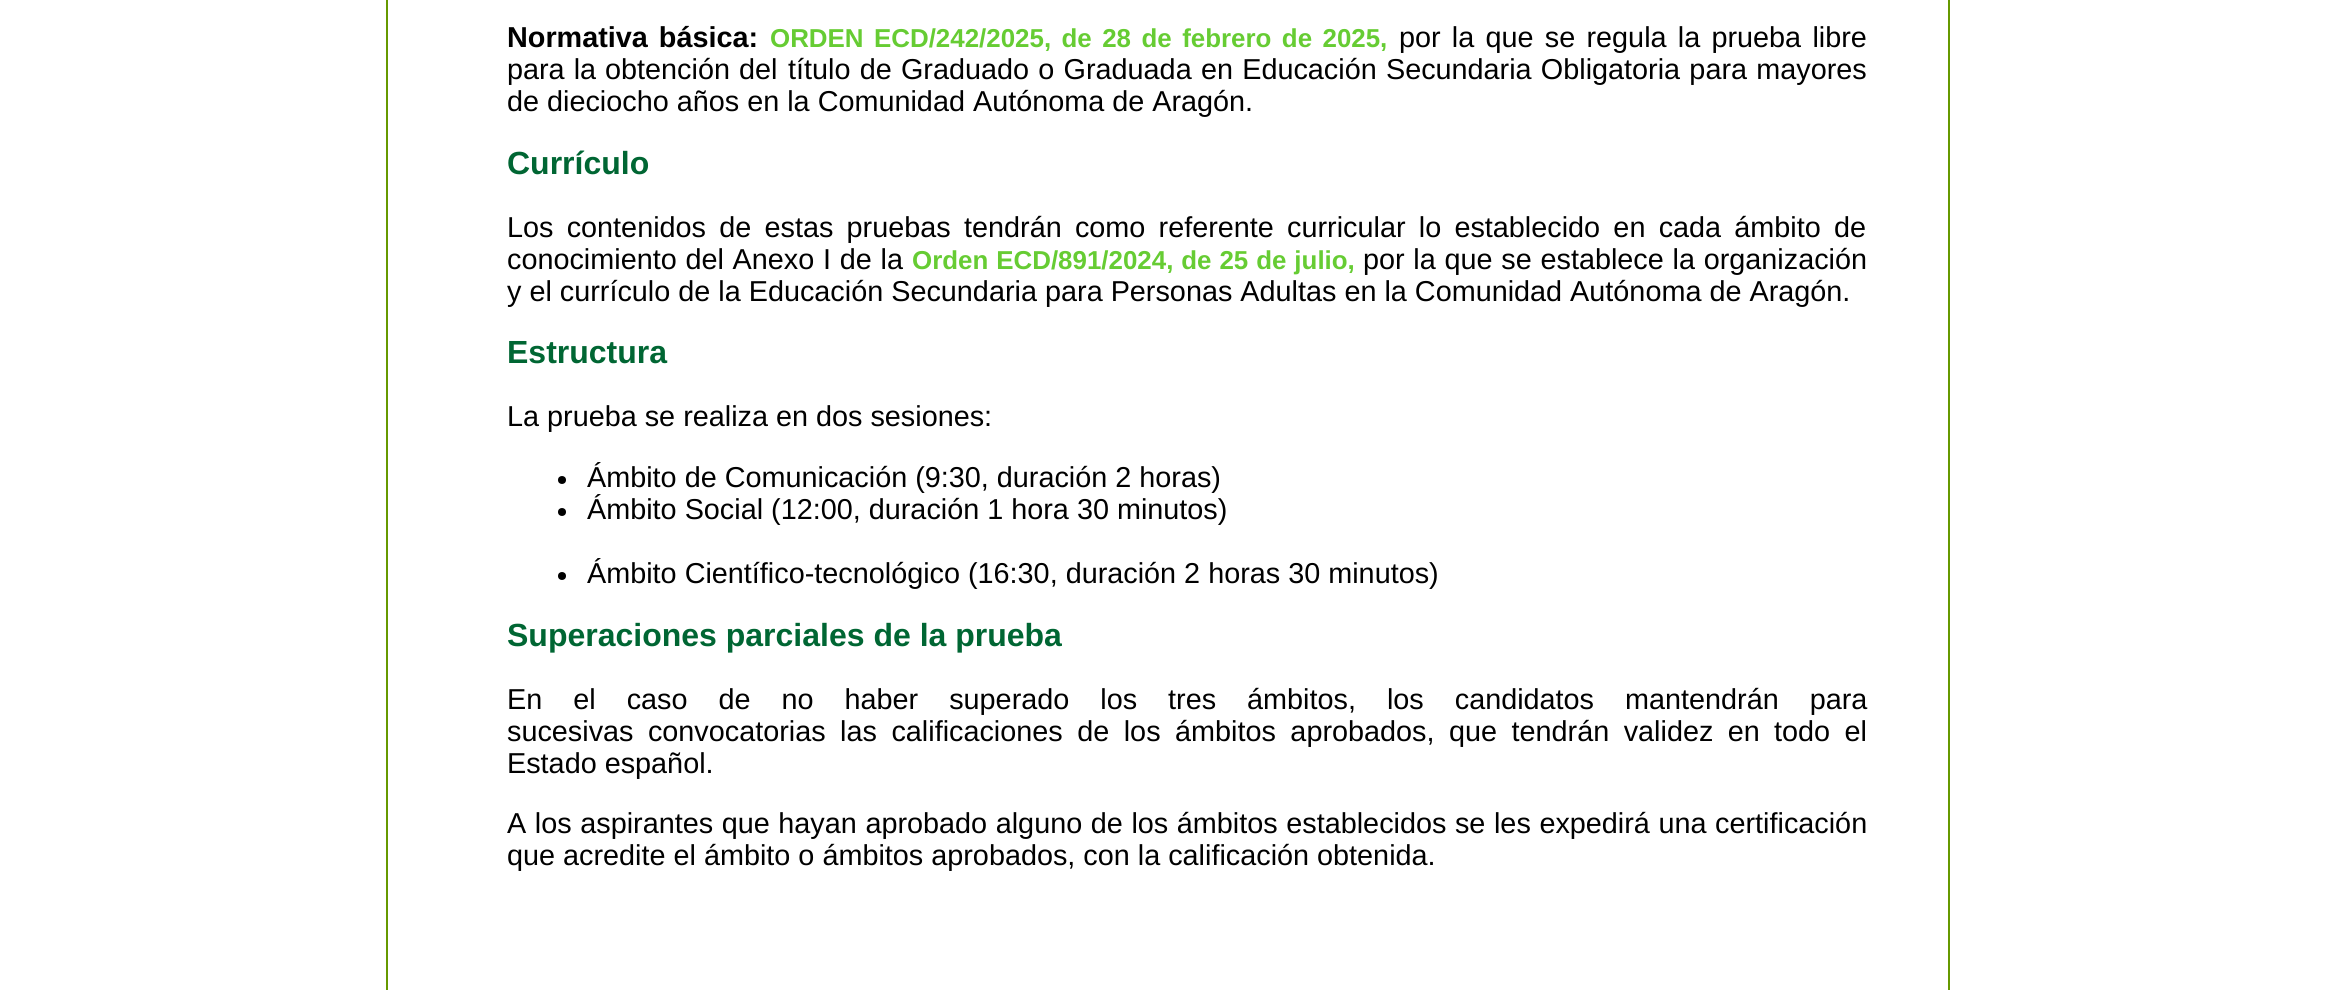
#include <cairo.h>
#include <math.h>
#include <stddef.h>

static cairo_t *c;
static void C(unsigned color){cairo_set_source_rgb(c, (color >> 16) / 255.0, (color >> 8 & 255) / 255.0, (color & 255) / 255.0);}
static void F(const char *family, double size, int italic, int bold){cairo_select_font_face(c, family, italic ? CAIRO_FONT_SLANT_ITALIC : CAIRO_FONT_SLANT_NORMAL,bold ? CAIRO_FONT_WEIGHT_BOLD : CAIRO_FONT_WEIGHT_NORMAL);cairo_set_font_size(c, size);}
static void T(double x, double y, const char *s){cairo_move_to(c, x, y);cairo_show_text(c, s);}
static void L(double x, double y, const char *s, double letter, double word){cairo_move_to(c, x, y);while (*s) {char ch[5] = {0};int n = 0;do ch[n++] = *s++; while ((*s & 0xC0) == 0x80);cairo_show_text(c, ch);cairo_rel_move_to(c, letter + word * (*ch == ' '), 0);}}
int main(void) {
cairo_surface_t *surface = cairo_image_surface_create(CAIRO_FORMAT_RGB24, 2330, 990);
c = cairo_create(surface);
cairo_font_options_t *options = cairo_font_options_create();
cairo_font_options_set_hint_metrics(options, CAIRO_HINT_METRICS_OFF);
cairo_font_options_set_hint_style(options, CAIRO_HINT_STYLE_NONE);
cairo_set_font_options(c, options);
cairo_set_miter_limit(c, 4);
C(0xffffff);
cairo_paint(c);
cairo_rectangle(c,387,-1,1562,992);
C(0x669900);
cairo_stroke(c);
F("Liberation Sans",28.8,0,1);
C(0x000000);
L(507,47,"Normativa básica:",0,3);
F("Liberation Sans",25.9,0,1);
C(0x66cc33);
L(770,47,"ORDEN ECD/242/2025, de 28 de febrero de 2025,",0,3.25);
F("Liberation Sans",28.8,0,0);
C(0x000000);
L(1399,47,"por la que se regula la prueba libre",0,3.25);
L(507,79,"para la obtención del",0,1);
L(788,79,"título de Graduado o Graduada en Educación Secundaria Obligatoria para mayores",0,1.25);
T(507,111,"de dieciocho años en la Comunidad Autónoma de Aragón.");
F("Liberation Sans",32,0,1);
C(0x006633);
T(507,174,"Currículo");
F("Liberation Sans",28.8,0,0);
C(0x000000);
L(507,237,"Los contenidos de estas pruebas",0,5.25);
L(964,237,"tendrán como referente curricular lo establecido en cada ámbito de",0,5.25);
L(507,269,"conocimiento del Anexo I de la",0,.75);
F("Liberation Sans",25.9,0,1);
C(0x66cc33);
L(912,269,"Orden ECD/891/2024, de 25 de julio,",0,.75);
F("Liberation Sans",28.8,0,0);
C(0x000000);
L(1363,269,"por la que se establece la organización",0,.75);
T(507,301,"y el currículo de la Educación Secundaria");
T(1045,301,"para Personas Adultas en la Comunidad Autónoma de Aragón.");
F("Liberation Sans",32,0,1);
C(0x006633);
T(507,363,"Estructura");
F("Liberation Sans",28.8,0,0);
C(0x000000);
T(507,426,"La prueba se realiza en dos sesiones:");
cairo_new_path(c);
cairo_arc(c,562,480,4,0,2 * M_PI);
cairo_fill(c);
T(587,487,"Ámbito de Comunicación (9:30, duración 2 horas)");
cairo_new_path(c);
cairo_arc(c,562,512,4,0,2 * M_PI);
cairo_fill(c);
T(587,519,"Ámbito Social (12:00, duración 1 hora 30 minutos)");
cairo_new_path(c);
cairo_arc(c,562,576,4,0,2 * M_PI);
cairo_fill(c);
T(587,583,"Ámbito Científico-tecnológico (16:30, duración 2 horas 30 minutos)");
F("Liberation Sans",32,0,1);
C(0x006633);
T(507,646,"Superaciones parciales de la prueba");
F("Liberation Sans",28.8,0,0);
C(0x000000);
L(507,709,"En el caso de no haber superado los tres ámbitos, los candidatos mantendrán para",0,23);
L(507,741,"sucesivas convocatorias las calificaciones de los ámbitos aprobados, que tendrán validez en",0,6.5);
L(1774,741,"todo el",0,6.5);
T(507,773,"Estado español.");
L(507,833,"A los aspirantes que hayan aprobado alguno de los ámbitos establecidos se les expedirá una certificación",0,.6);
T(507,865,"que acredite el ámbito o ámbitos aprobados, con la calificación obtenida.");
cairo_surface_write_to_png(surface, "o.png");
cairo_font_options_destroy(options);
cairo_destroy(c);
cairo_surface_destroy(surface);
return 0;
}
